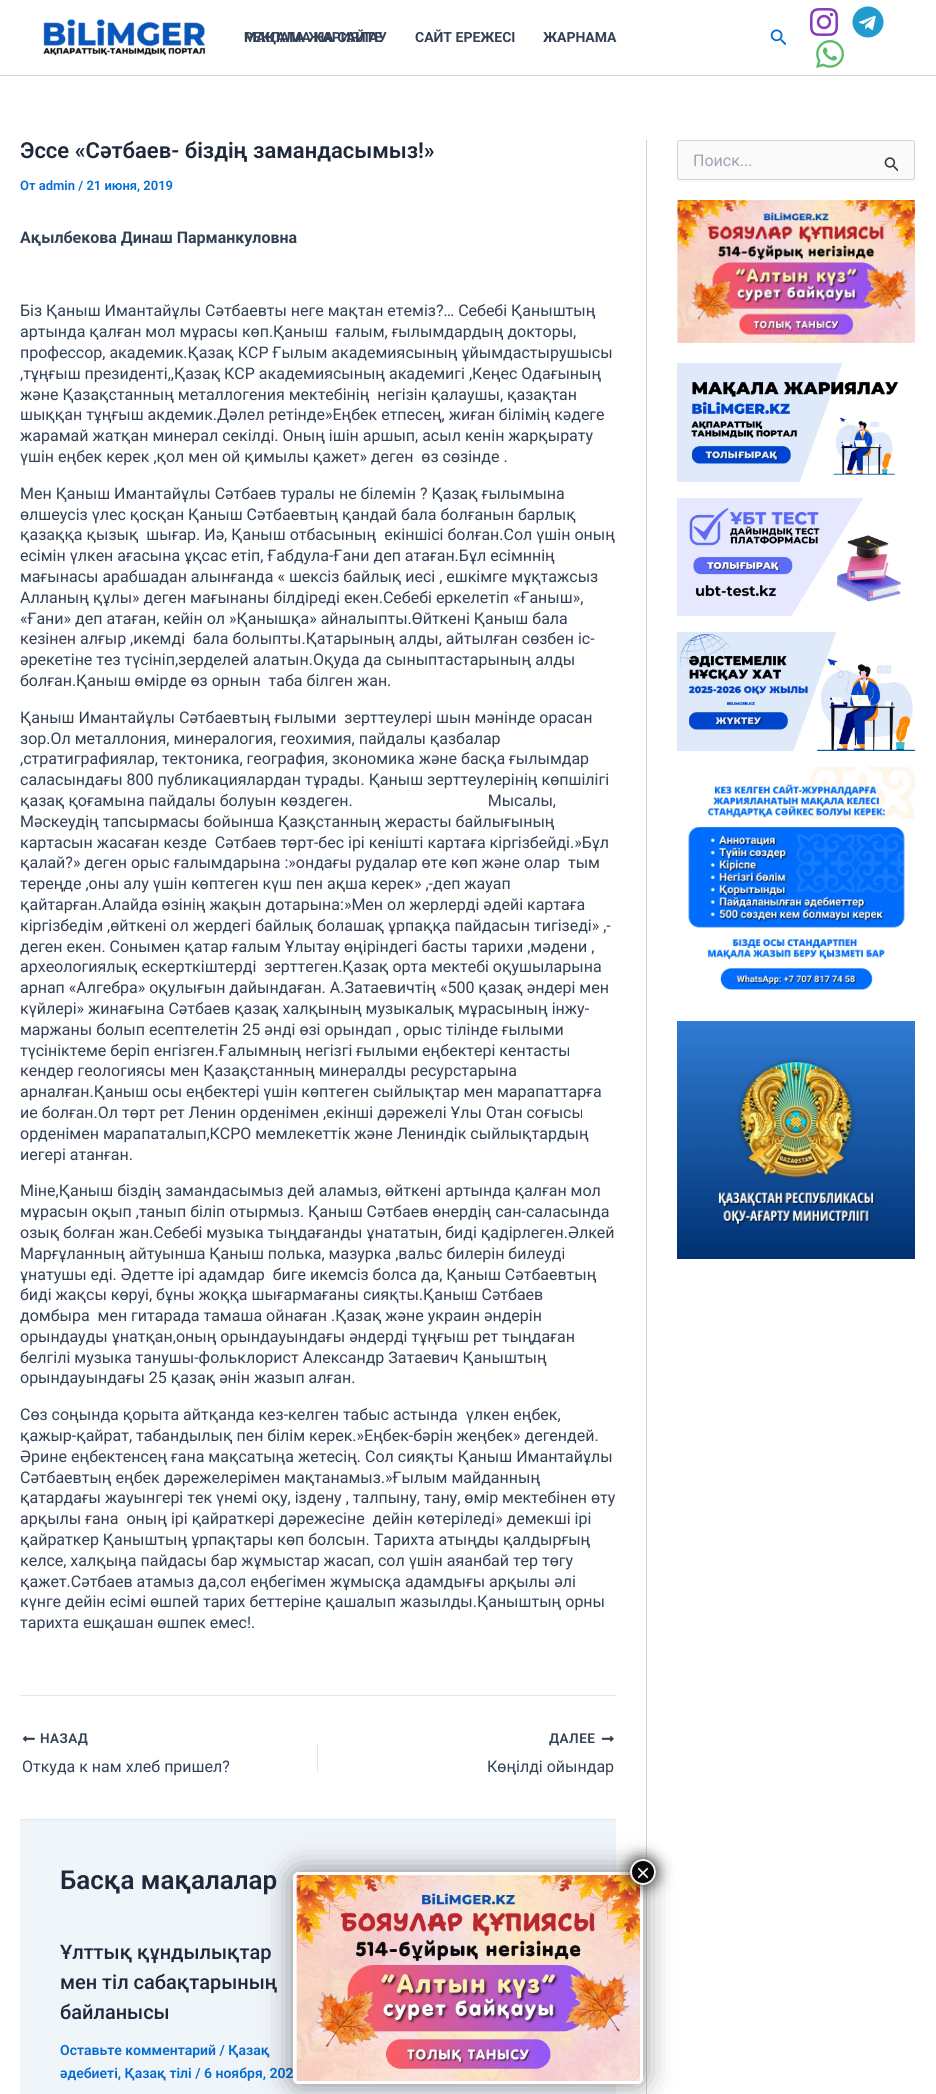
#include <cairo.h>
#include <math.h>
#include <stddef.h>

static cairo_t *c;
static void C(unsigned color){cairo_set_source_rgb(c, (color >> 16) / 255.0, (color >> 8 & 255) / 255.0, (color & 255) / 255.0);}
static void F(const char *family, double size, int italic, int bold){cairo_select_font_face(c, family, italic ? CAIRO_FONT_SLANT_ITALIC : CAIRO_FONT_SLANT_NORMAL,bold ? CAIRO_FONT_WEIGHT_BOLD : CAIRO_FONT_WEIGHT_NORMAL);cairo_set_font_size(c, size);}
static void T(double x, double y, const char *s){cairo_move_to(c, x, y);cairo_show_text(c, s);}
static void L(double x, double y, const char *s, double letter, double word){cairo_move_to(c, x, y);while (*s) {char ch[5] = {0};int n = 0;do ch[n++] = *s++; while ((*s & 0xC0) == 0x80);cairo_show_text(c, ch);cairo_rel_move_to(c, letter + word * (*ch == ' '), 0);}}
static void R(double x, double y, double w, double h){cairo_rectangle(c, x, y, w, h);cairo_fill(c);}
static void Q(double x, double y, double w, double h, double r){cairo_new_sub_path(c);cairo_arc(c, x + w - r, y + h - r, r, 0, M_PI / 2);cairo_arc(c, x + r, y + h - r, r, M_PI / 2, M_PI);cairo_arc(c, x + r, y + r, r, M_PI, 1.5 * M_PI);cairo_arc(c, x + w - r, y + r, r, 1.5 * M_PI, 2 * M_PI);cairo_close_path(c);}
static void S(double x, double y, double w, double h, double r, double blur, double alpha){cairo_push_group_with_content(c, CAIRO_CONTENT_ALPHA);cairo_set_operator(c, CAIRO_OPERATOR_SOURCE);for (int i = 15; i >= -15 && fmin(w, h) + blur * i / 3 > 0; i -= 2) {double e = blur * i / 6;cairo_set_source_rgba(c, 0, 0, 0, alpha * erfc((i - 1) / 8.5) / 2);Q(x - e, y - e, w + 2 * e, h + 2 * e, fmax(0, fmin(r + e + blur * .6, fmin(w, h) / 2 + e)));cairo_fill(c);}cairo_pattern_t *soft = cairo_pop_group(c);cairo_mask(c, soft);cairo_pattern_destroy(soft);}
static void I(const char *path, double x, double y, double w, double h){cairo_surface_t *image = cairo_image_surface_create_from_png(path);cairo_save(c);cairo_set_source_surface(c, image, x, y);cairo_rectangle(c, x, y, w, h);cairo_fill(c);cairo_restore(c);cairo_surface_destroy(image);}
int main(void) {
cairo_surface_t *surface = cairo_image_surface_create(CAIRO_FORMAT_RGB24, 936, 2094);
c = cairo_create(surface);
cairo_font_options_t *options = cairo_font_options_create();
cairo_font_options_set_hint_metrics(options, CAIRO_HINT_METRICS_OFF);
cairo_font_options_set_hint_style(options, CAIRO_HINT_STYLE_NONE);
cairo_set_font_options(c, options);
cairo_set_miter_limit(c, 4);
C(0xffffff);
cairo_paint(c);
C(0xd1d5db);
R(0,75,936,1);
I("1.png",43,19,163,37);
F("Roboto",14,0,1);
C(0x334155);
T(244,42,"МАҚАЛА ЖАРИЯЛАУ");
T(244,42,"РЕКЛАМА НА САЙТЕ");
T(415,42,"САЙТ ЕРЕЖЕСІ");
T(543,42,"ЖАРНАМА");
I("2.png",770,29,16,17);
I("3.png",810,8,28,28);
I("4.png",852,6,32,32);
I("5.png",816,40,28,28);
C(0xd1d5db);
R(646,140,1,1954);
F("Roboto SemiBold",22,0,0);
C(0x1e293b);
T(20,158,"Эссе «Сәтбаев- біздің замандасымыз!»");
F("Roboto SemiBold",13,0,0);
C(0x046bd2);
T(20,190,"От admin / 21 июня, 2019");
F("Roboto",16,0,1);
C(0x334155);
T(20,243,"Ақылбекова Динаш Парманкуловна");
F("Roboto",16,0,0);
T(20,316,"Біз Қаныш Имантайұлы Сәтбаевты неге мақтан етеміз?… Себебі Қаныштың");
T(20,337,"артында қалған мол мұрасы көп.Қаныш  ғалым, ғылымдардың докторы,");
T(20,358,"профессор, академик.Қазақ КСР Ғылым академиясының ұйымдастырушысы");
T(20,379,",тұңғыш президенті,,Қазақ КСР академиясының академигі ,Кеңес Одағының");
T(20,400,"және Қазақстанның металлогения мектебінің  негізін қалаушы, қазақтан");
T(20,420,"шыққан тұңғыш акдемик.Дәлел ретінде»Еңбек етпесең, жиған білімің кәдеге");
T(20,441,"жарамай жатқан минерал секілді. Оның ішін аршып, асыл кенін жарқырату");
T(20,462,"үшін еңбек керек ,қол мен ой қимылы қажет» деген  өз сөзінде .");
T(20,499,"Мен Қаныш Имантайұлы Сәтбаев туралы не білемін ? Қазақ ғылымына");
T(20,520,"өлшеусіз үлес қосқан Қаныш Сәтбаевтың қандай бала болғанын барлық");
T(20,540,"қазаққа қызық  шығар. Иә, Қаныш отбасының  екіншісі болған.Сол үшін оның");
T(20,561,"есімін үлкен ағасына ұқсас етіп, Ғабдула-Ғани деп атаған.Бұл есімннің");
T(20,582,"мағынасы арабшадан алынғанда « шексіз байлық иесі , ешкімге мұқтажсыз");
T(20,603,"Алланың құлы» деген мағынаны білдіреді екен.Себебі еркелетіп «Ғаныш»,");
T(20,624,"«Ғани» деп атаған, кейін ол »Қанышқа» айналыпты.Өйткені Қаныш бала");
T(20,644,"кезінен алғыр ,икемді  бала болыпты.Қатарының алды, айтылған сөзбен іс-");
T(20,665,"әрекетіне тез түсініп,зерделей алатын.Оқуда да сыныптастарының алды");
T(20,686,"болған.Қаныш өмірде өз орнын  таба білген жан.");
T(20,723,"Қаныш Имантайұлы Сәтбаевтың ғылыми  зерттеулері шын мәнінде орасан");
T(20,744,"зор.Ол металлония, минералогия, геохимия, пайдалы қазбалар");
T(20,764,",стратиграфиялар, тектоника, география, зкономика және басқа ғылымдар");
T(20,785,"саласындағы 800 публикациялардан тұрады. Қаныш зерттеулерінің көпшілігі");
T(20,806,"қазақ қоғамына пайдалы болуын көздеген.                                  Мысалы,");
T(20,827,"Мәскеудің тапсырмасы бойынша Қазқстанның жерасты байлығының");
T(20,848,"картасын жасаған кезде  Сәтбаев төрт-бес ірі кенішті картаға кіргізбейді.»Бұл");
T(20,868,"қалай?» деген орыс ғалымдарына :»ондағы рудалар өте көп және олар  тым");
T(20,889,"тереңде ,оны алу үшін көптеген күш пен ақша керек» ,-деп жауап");
T(20,910,"қайтарған.Алайда өзінің жақын дотарына:»Мен ол жерлерді әдейі картаға");
T(20,931,"кіргізбедім ,өйткені ол жердегі байлық болашақ ұрпаққа пайдасын тигізеді» ,-");
T(20,952,"деген екен. Сонымен қатар ғалым Ұлытау өңіріндегі басты тарихи ,мәдени ,");
T(20,972,"археологиялық ескерткіштерді  зерттеген.Қазақ орта мектебі оқушыларына");
T(20,993,"арнап «Алгебра» оқулығын дайындаған. А.Затаевичтің «500 қазақ әндері мен");
T(20,1014,"күйлері» жинағына Сәтбаев қазақ халқының музыкалық мұрасының інжу-");
T(20,1035,"маржаны болып есептелетін 25 әнді өзі орындап , орыс тілінде ғылыми");
T(20,1056,"түсініктеме беріп енгізген.Ғалымның негізгі ғылыми еңбектері кентасты");
T(20,1076,"кендер геологиясы мен Қазақстанның минералды ресурстарына");
T(20,1097,"арналған.Қаныш осы еңбектері үшін көптеген сыйлықтар мен марапаттарға");
T(20,1118,"ие болған.Ол төрт рет Ленин орденімен ,екінші дәрежелі Ұлы Отан соғысы");
T(20,1139,"орденімен марапаталып,КСРО мемлекеттік және Лениндік сыйлықтардың");
T(20,1160,"иегері атанған.");
T(20,1196,"Міне,Қаныш біздің замандасымыз дей аламыз, өйткені артында қалған мол");
T(20,1217,"мұрасын оқып ,танып біліп отырмыз. Қаныш Сәтбаев өнердің сан-саласында");
T(20,1238,"озық болған жан.Себебі музыка тыңдағанды ұнататын, биді қадірлеген.Әлкей");
T(20,1259,"Марғұланның айтуынша Қаныш полька, мазурка ,вальс билерін билеуді");
T(20,1280,"ұнатушы еді. Әдетте ірі адамдар  биге икемсіз болса да, Қаныш Сәтбаевтың");
T(20,1300,"биді жақсы көруі, бұны жоққа шығармағаны сияқты.Қаныш Сәтбаев");
T(20,1321,"домбыра  мен гитарада тамаша ойнаған .Қазақ және украин әндерін");
T(20,1342,"орындауды ұнатқан,оның орындауындағы әндерді тұңғыш рет тыңдаған");
T(20,1363,"белгілі музыка танушы-фольклорист Александр Затаевич Қаныштың");
T(20,1383,"орындауындағы 25 қазақ әнін жазып алған.");
T(20,1420,"Сөз соңында қорыта айтқанда кез-келген табыс астында  үлкен еңбек,");
T(20,1441,"қажыр-қайрат, табандылық пен білім керек.»Еңбек-бәрін жеңбек» дегендей.");
T(20,1462,"Әрине еңбектенсең ғана мақсатыңа жетесің. Сол сияқты Қаныш Имантайұлы");
T(20,1483,"Сәтбаевтың еңбек дәрежелерімен мақтанамыз.»Ғылым майданның");
T(20,1503,"қатардағы жауынгері тек үнемі оқу, іздену , талпыну, тану, өмір мектебінен өту");
T(20,1524,"арқылы ғана  оның ірі қайраткері дәрежесіне  дейін көтеріледі» демекші ірі");
T(20,1545,"қайраткер Қаныштың ұрпақтары көп болсын. Тарихта атыңды қалдырғың");
T(20,1566,"келсе, халқыңа пайдасы бар жұмыстар жасап, сол үшін аяанбай тер төгу");
T(20,1587,"қажет.Сәтбаев атамыз да,сол еңбегімен жұмысқа адамдығы арқылы әлі");
T(20,1607,"күнге дейін есімі өшпей тарих беттеріне қашалып жазылды.Қаныштың орны");
T(20,1628,"тарихта ешқашан өшпек емес!.");
C(0xe1e8ed);
R(20,1695,596,1);
I("6.png",22,1735,13,7);
F("Roboto SemiBold",13.5,0,0);
C(0x334155);
L(40,1743,"НАЗАД",.5,0);
F("Roboto",16,0,0);
T(22,1772,"Откуда к нам хлеб пришел?");
C(0xe1e8ed);
R(317,1743,1,29);
F("Roboto SemiBold",13.5,0,0);
C(0x334155);
L(549,1743,"ДАЛЕЕ",.5,0);
I("7.png",601,1735,13,7);
F("Roboto",16,0,0);
T(487,1772,"Көңілді ойындар");
C(0xf0f5fa);
R(20,1820,596,274);
C(0xe1e8ed);
R(20,1819,596,1);
F("Roboto SemiBold",26,0,0);
C(0x1e293b);
T(60,1889,"Басқа мақалалар");
F("Roboto Medium",20,0,0);
T(60,1959,"Ұлттық құндылықтар");
T(60,1989,"мен тіл сабақтарының");
T(60,2019,"байланысы");
F("Roboto SemiBold",14,0,0);
C(0x046bd2);
T(60,2055,"Оставьте комментарий / Қазақ");
T(60,2078,"әдебиеті, Қазақ тілі / 6 ноября, 202");
C(0x000000);
S(677,141,238,40,2,1,.05);
C(0xfafafa);
Q(677.5,140.5,237,39,1.5);
cairo_fill_preserve(c);
C(0xd1d5db);
cairo_set_line_width(c,1);
cairo_stroke(c);
F("Roboto",16,0,0);
C(0x9ca3af);
T(693,166,"Поиск...");
I("8.png",884,157,14,15);
I("9.png",677,200,238,143);
I("10.png",677,363,222,119);
I("11.png",677,498,224,118);
I("12.png",677,632,238,119);
I("13.png",688,767,227,224);
I("14.png",677,1021,238,238);
cairo_save(c);
cairo_set_fill_rule(c,CAIRO_FILL_RULE_EVEN_ODD);
cairo_new_path(c);
cairo_move_to(c,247,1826);
cairo_line_to(c,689,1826);
cairo_line_to(c,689,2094);
cairo_line_to(c,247,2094);
cairo_close_path(c);
cairo_move_to(c,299,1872);
cairo_line_to(c,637,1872);
cairo_curve_to(c,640.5,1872,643,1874.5,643,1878);
cairo_line_to(c,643,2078);
cairo_curve_to(c,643,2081.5,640.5,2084,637,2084);
cairo_line_to(c,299,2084);
cairo_curve_to(c,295.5,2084,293,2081.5,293,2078);
cairo_line_to(c,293,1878);
cairo_curve_to(c,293,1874.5,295.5,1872,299,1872);
cairo_close_path(c);
cairo_clip(c);
C(0x020202);
S(293,1872,350,212,6,15,.47);
cairo_restore(c);
cairo_set_source_rgba(c,1,1,1,0.96);
Q(293,1872,350,212,6);
cairo_fill(c);
I("15.png",296,1875,344,206);
cairo_save(c);
cairo_set_fill_rule(c,CAIRO_FILL_RULE_EVEN_ODD);
cairo_new_path(c);
cairo_move_to(c,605,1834);
cairo_line_to(c,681,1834);
cairo_line_to(c,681,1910);
cairo_line_to(c,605,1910);
cairo_close_path(c);
cairo_move_to(c,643,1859);
cairo_curve_to(c,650,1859,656,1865,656,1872);
cairo_curve_to(c,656,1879,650,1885,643,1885);
cairo_curve_to(c,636,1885,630,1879,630,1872);
cairo_curve_to(c,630,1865,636,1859,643,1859);
cairo_close_path(c);
cairo_clip(c);
C(0x020202);
S(629,1858,28,28,14,7.5,.72);
cairo_restore(c);
cairo_set_source_rgba(c,0,0,0,0.96);
cairo_arc(c,643,1872,13,0,2 * M_PI);
cairo_fill(c);
cairo_arc(c,643,1872,12,0,2 * M_PI);
cairo_set_source_rgba(c,1,1,1,0.96);
cairo_set_line_width(c,2);
cairo_stroke(c);
F("Liberation Sans",24,0,0);
C(0xf5f5f5);
T(636,1881,"×");
cairo_surface_write_to_png(surface, "o.png");
cairo_font_options_destroy(options);
cairo_destroy(c);
cairo_surface_destroy(surface);
return 0;
}
